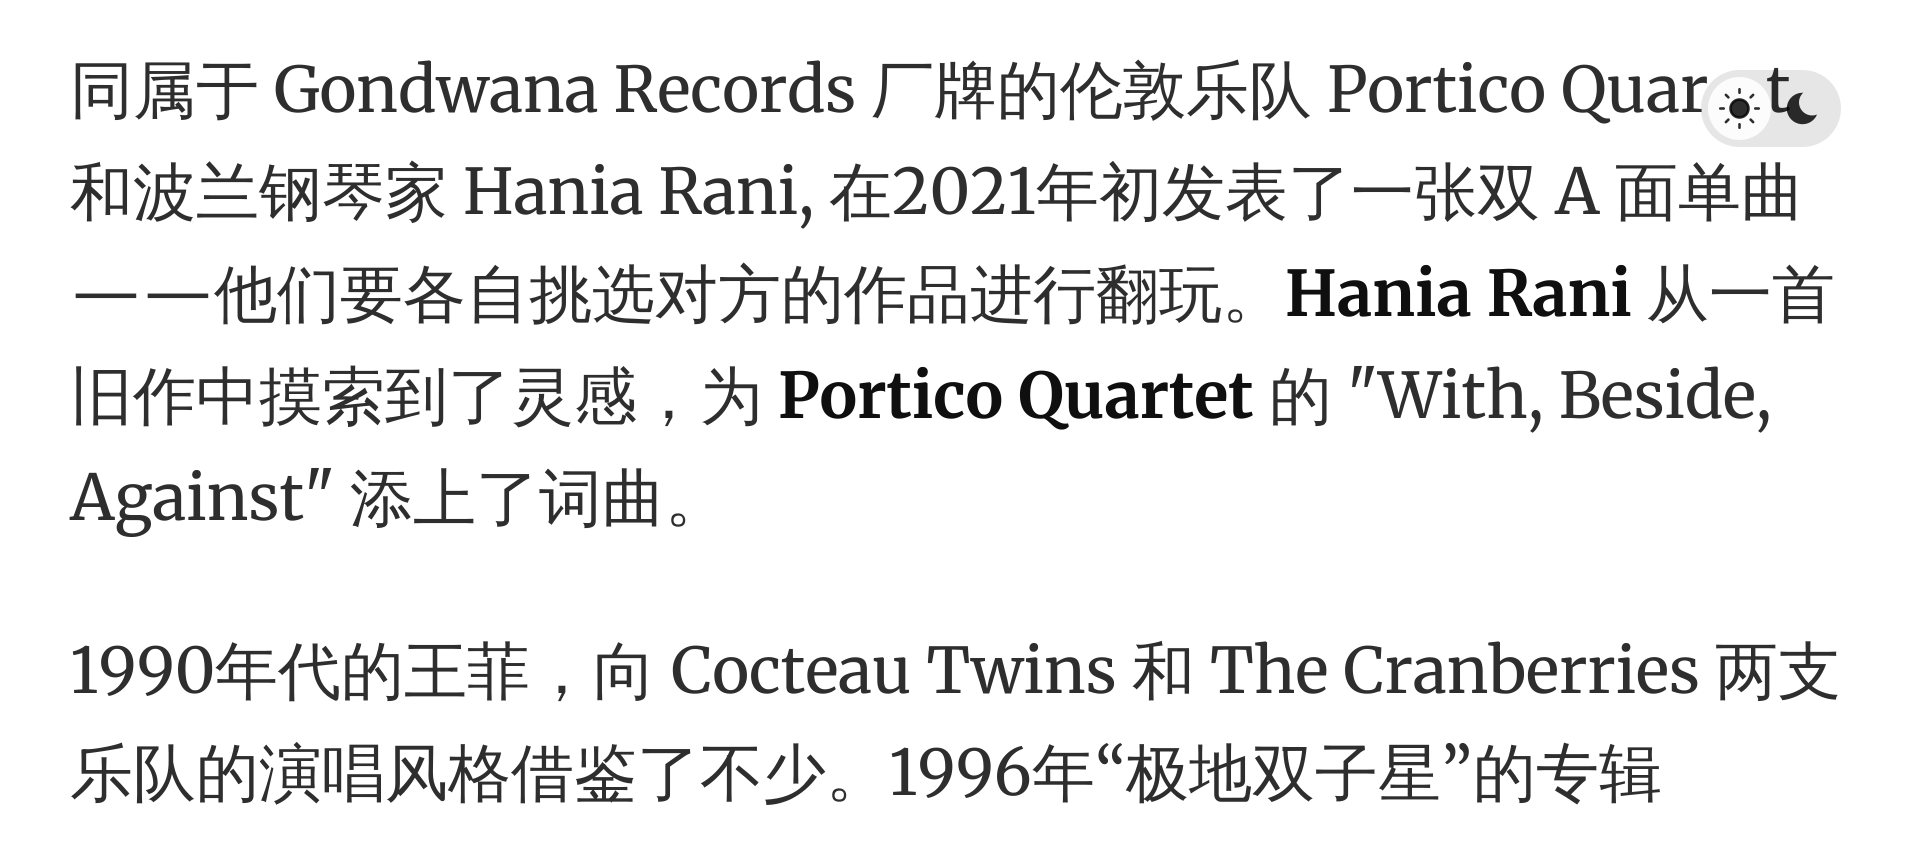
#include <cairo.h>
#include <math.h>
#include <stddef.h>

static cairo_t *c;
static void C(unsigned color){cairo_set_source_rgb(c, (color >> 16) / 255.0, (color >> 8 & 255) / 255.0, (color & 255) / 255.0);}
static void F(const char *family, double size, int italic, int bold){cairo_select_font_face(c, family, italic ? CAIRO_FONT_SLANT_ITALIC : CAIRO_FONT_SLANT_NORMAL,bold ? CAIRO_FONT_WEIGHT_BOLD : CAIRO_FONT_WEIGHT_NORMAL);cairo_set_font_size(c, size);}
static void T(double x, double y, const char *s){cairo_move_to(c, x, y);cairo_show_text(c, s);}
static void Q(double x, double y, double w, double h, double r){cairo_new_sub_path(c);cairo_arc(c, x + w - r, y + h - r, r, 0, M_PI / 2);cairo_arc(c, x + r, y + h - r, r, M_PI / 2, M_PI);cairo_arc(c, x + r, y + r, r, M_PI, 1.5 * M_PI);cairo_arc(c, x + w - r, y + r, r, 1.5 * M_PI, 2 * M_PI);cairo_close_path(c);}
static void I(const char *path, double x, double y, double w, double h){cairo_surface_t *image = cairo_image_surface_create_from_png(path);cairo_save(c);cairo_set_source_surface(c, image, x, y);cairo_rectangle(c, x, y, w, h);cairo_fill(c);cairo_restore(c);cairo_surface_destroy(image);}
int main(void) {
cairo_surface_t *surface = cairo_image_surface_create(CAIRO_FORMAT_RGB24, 1910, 861);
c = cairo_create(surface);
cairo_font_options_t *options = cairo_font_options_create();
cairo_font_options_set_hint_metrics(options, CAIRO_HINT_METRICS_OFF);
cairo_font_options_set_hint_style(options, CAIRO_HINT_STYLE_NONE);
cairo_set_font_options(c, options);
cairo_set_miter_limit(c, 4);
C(0xffffff);
cairo_paint(c);
F("WenQuanYi Zen Hei Medium",63,0,0);
C(0x2e2e2e);
T(70,112,"同属于");
F("Merriweather",63,0,0);
T(274,112,"Gondwana Records");
F("WenQuanYi Zen Hei Medium",63,0,0);
T(871,112,"厂牌的伦敦乐队");
F("Merriweather",63,0,0);
T(1327,112,"Portico Quar");
T(1766,112,"t");
F("WenQuanYi Zen Hei Medium",63,0,0);
T(70,214,"和波兰钢琴家");
F("Merriweather",63,0,0);
T(463,214,"Hania Rani,");
F("WenQuanYi Zen Hei Medium",63,0,0);
T(829,214,"在");
F("Merriweather",63,0,0);
T(892,214,"2021");
F("WenQuanYi Zen Hei Medium",63,0,0);
T(1036,214,"年初发表了一张双");
F("Merriweather",63,0,0);
T(1555,214,"A");
F("WenQuanYi Zen Hei Medium",63,0,0);
T(1615,214,"面单曲");
F("Merriweather",63,0,0);
T(70,316,"——");
F("WenQuanYi Zen Hei Medium",63,0,0);
T(214,316,"他们要各自挑选对方的作品进行翻玩。");
F("Merriweather",63,0,1);
C(0x0f0f0f);
T(1285,316,"Hania Rani");
F("WenQuanYi Zen Hei Medium",63,0,0);
C(0x2e2e2e);
T(1646,316,"从一首");
T(70,418,"旧作中摸索到了灵感，为");
F("Merriweather",63,0,1);
C(0x0f0f0f);
T(778,418,"Portico Quartet");
F("WenQuanYi Zen Hei Medium",63,0,0);
C(0x2e2e2e);
T(1269,418,"的");
F("Merriweather",63,0,0);
T(1347,418,"\"With, Beside,");
T(70,520,"Against\"");
F("WenQuanYi Zen Hei Medium",63,0,0);
T(350,520,"添上了词曲。");
F("Merriweather",63,0,0);
T(70,693,"1990");
F("WenQuanYi Zen Hei Medium",63,0,0);
T(215,693,"年代的王菲，向");
F("Merriweather",63,0,0);
T(671,693,"Cocteau Twins");
F("WenQuanYi Zen Hei Medium",63,0,0);
T(1132,693,"和");
F("Merriweather",63,0,0);
T(1210,693,"The Cranberries");
F("WenQuanYi Zen Hei Medium",63,0,0);
T(1715,693,"两支");
T(70,795,"乐队的演唱风格借鉴了不少。");
F("Merriweather",63,0,0);
T(889,795,"1996");
F("WenQuanYi Zen Hei Medium",63,0,0);
T(1032,795,"年");
F("Merriweather",63,0,0);
T(1095,795,"“");
F("WenQuanYi Zen Hei Medium",63,0,0);
T(1126,795,"极地双子星");
F("Merriweather",63,0,0);
T(1441,795,"”");
F("WenQuanYi Zen Hei Medium",63,0,0);
T(1473,795,"的专辑");
cairo_set_source_rgba(c,0,0,0,0.1);
Q(1701,70,140,77,38.5);
cairo_fill(c);
cairo_set_source_rgba(c,1,1,1,0.86);
cairo_arc(c,1739.5,108.5,31.5,0,2 * M_PI);
cairo_fill(c);
I("1.png",1719,88,41,41);
I("2.png",1786,92,31,33);
cairo_surface_write_to_png(surface, "o.png");
cairo_font_options_destroy(options);
cairo_destroy(c);
cairo_surface_destroy(surface);
return 0;
}
